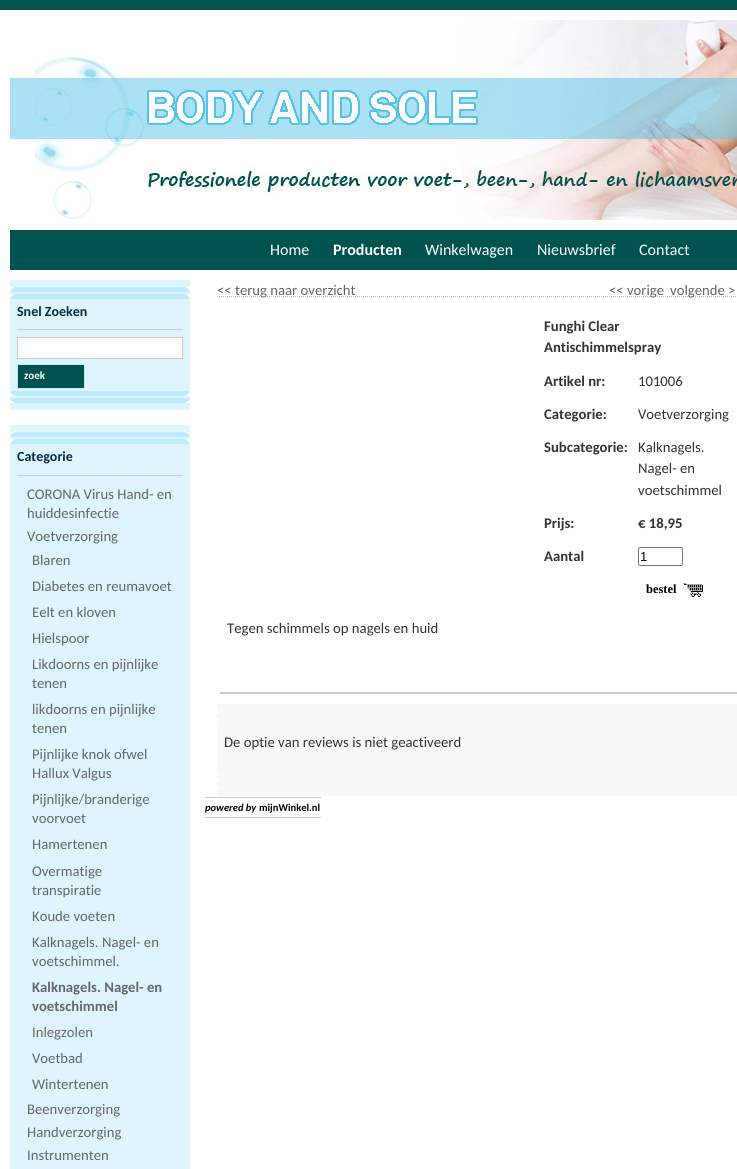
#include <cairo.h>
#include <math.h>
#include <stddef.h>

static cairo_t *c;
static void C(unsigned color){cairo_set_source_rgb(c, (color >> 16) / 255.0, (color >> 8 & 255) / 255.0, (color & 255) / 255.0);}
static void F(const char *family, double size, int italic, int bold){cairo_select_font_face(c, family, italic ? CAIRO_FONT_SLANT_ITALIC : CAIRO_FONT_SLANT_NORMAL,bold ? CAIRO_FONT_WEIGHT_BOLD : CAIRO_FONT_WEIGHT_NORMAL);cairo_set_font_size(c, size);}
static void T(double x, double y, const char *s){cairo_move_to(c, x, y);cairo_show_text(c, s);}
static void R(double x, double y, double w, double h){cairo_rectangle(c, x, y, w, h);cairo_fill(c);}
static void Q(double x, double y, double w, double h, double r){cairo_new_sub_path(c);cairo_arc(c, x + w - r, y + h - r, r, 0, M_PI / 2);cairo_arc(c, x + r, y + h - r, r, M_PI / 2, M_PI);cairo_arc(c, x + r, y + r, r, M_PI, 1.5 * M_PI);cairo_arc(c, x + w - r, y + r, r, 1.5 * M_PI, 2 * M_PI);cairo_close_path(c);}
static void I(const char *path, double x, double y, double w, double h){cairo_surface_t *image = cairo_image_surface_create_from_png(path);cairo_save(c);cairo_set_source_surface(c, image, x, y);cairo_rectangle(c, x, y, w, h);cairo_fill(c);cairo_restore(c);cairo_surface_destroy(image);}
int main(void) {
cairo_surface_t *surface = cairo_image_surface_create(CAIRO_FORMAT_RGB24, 737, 1169);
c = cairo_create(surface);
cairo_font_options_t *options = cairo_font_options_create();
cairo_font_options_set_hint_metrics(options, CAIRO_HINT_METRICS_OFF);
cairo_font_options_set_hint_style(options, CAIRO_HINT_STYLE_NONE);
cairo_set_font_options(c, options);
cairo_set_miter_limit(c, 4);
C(0xffffff);
cairo_paint(c);
I("1.png",0,0,737,10);
I("2.png",10,20,727,200);
C(0x005350);
R(10,230,727,40);
F("Carlito",16,0,0);
C(0xffffff);
T(270,255,"Home");
F("Carlito",16,0,1);
T(333,255,"Producten");
F("Carlito",16,0,0);
T(425,255,"Winkelwagen");
T(537,255,"Nieuwsbrief");
T(639,255,"Contact");
C(0xdef5fe);
R(10,280,180,130);
C(0xffffff);
R(10,287,180,3);
C(0xbcebfd);
R(15,287,170,1);
C(0xddf5fe);
R(185,287,2,1);
R(13,287,2,1);
C(0xbcebfd);
R(13,288,174,1);
C(0xddf5fe);
R(187,288,1,1);
R(12,288,1,1);
C(0xbcebfd);
R(12,289,176,1);
C(0xddf5fe);
R(188,289,1,1);
R(11,289,1,1);
C(0xbcebfd);
R(11,290,178,2);
C(0xffffff);
R(10,294,180,3);
C(0xbcebfd);
R(15,294,170,1);
C(0xddf5fe);
R(185,294,2,1);
R(13,294,2,1);
C(0xbcebfd);
R(13,295,174,1);
C(0xddf5fe);
R(187,295,1,1);
R(12,295,1,1);
C(0xbcebfd);
R(12,296,176,1);
C(0xddf5fe);
R(188,296,1,1);
R(11,296,1,1);
C(0xbcebfd);
R(11,297,178,2);
C(0xcdcdcd);
R(17,329,166,1);
F("Carlito",14,0,1);
C(0x072a48);
T(17,316,"Snel Zoeken");
C(0xffffff);
cairo_rectangle(c,17.5,337.5,165,21);
cairo_fill_preserve(c);
C(0xcccccc);
cairo_set_line_width(c,1);
cairo_stroke(c);
C(0x005350);
cairo_rectangle(c,17.5,364.5,67,24);
cairo_fill_preserve(c);
C(0xbcebfd);
cairo_stroke(c);
F("Carlito",11,0,1);
C(0xffffff);
T(24,379,"zoek");
R(10,393,180,3);
C(0xbcebfd);
R(11,391,178,2);
R(12,393,176,1);
C(0xddf5fe);
R(188,393,1,1);
R(11,393,1,1);
C(0xbcebfd);
R(13,394,174,1);
C(0xddf5fe);
R(187,394,1,1);
R(12,394,1,1);
C(0xbcebfd);
R(15,395,170,1);
C(0xddf5fe);
R(185,395,2,1);
R(13,395,2,1);
C(0xffffff);
R(10,400,180,3);
C(0xbcebfd);
R(11,398,178,2);
R(12,400,176,1);
C(0xddf5fe);
R(188,400,1,1);
R(11,400,1,1);
C(0xbcebfd);
R(13,401,174,1);
C(0xddf5fe);
R(187,401,1,1);
R(12,401,1,1);
C(0xbcebfd);
R(15,402,170,1);
C(0xddf5fe);
R(185,402,2,1);
R(13,402,2,1);
C(0xdef5fe);
R(10,425,180,744);
C(0xffffff);
R(10,432,180,3);
C(0xbcebfd);
R(15,432,170,1);
C(0xddf5fe);
R(185,432,2,1);
R(13,432,2,1);
C(0xbcebfd);
R(13,433,174,1);
C(0xddf5fe);
R(187,433,1,1);
R(12,433,1,1);
C(0xbcebfd);
R(12,434,176,1);
C(0xddf5fe);
R(188,434,1,1);
R(11,434,1,1);
C(0xbcebfd);
R(11,435,178,2);
C(0xffffff);
R(10,439,180,3);
C(0xbcebfd);
R(15,439,170,1);
C(0xddf5fe);
R(185,439,2,1);
R(13,439,2,1);
C(0xbcebfd);
R(13,440,174,1);
C(0xddf5fe);
R(187,440,1,1);
R(12,440,1,1);
C(0xbcebfd);
R(12,441,176,1);
C(0xddf5fe);
R(188,441,1,1);
R(11,441,1,1);
C(0xbcebfd);
R(11,442,178,2);
C(0xcdcdcd);
R(17,475,166,1);
F("Carlito",14,0,1);
C(0x072a48);
T(17,461,"Categorie");
F("Carlito",14.7,0,0);
C(0x666666);
T(27,499,"CORONA Virus Hand- en");
T(27,518,"huiddesinfectie");
T(27,541,"Voetverzorging");
T(32,565,"Blaren");
T(32,591,"Diabetes en reumavoet");
T(32,617,"Eelt en kloven");
T(32,643,"Hielspoor");
T(32,669,"Likdoorns en pijnlijke");
T(32,688,"tenen");
T(32,714,"likdoorns en pijnlijke");
T(32,733,"tenen");
T(32,759,"Pijnlijke knok ofwel");
T(32,778,"Hallux Valgus");
T(32,804,"Pijnlijke/branderige");
T(32,823,"voorvoet");
T(32,849,"Hamertenen");
T(32,876,"Overmatige");
T(32,895,"transpiratie");
T(32,921,"Koude voeten");
T(32,947,"Kalknagels. Nagel- en");
T(32,966,"voetschimmel.");
F("Carlito",14.7,0,1);
T(32,992,"Kalknagels. Nagel- en");
T(32,1011,"voetschimmel");
F("Carlito",14.7,0,0);
T(32,1037,"Inlegzolen");
T(32,1063,"Voetbad");
T(32,1089,"Wintertenen");
T(27,1114,"Beenverzorging");
T(27,1137,"Handverzorging");
T(27,1160,"Instrumenten");
cairo_new_path(c);
cairo_move_to(c,217,296.5);
cairo_line_to(c,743,296.5);
C(0xc1c1c1);
cairo_set_dash(c,(double[]){1,1},2,0);
cairo_stroke(c);
C(0x666666);
T(217,295,"<< terug naar overzicht");
T(609,295,"<< vorige");
T(670,295,"volgende >");
F("Carlito",14.7,0,1);
C(0x333333);
T(544,331,"Funghi Clear");
T(544,352,"Antischimmelspray");
T(544,386,"Artikel nr:");
F("Carlito",14.7,0,0);
T(638,386,"101006");
F("Carlito",14.7,0,1);
T(544,419,"Categorie:");
F("Carlito",14.7,0,0);
T(638,419,"Voetverzorging");
F("Carlito",14.7,0,1);
T(544,452,"Subcategorie:");
F("Carlito",14.7,0,0);
T(638,452,"Kalknagels.");
T(638,473,"Nagel- en");
T(638,495,"voetschimmel");
F("Carlito",14.7,0,1);
T(544,528,"Prijs:");
T(638,528,"€ 18,95");
T(544,561,"Aantal");
Q(638.5,547.5,44,18,1.5);
C(0x767676);
cairo_set_dash(c,NULL,0,0);
cairo_stroke(c);
F("Liberation Sans",13,0,0);
C(0x000000);
T(640,561,"1");
F("Liberation Serif",12.5,0,1);
T(646,593,"bestel");
I("3.png",683,583,20,14);
F("Carlito",14.7,0,0);
C(0x333333);
T(227,633,"Tegen schimmels op nagels en huid");
C(0xcccccc);
R(220,692,517,2);
C(0xf8f8f8);
R(217,704,520,92);
C(0xffffff);
R(217,711,3,3);
C(0xfbfbfb);
R(220,711,2,1);
R(219,712,1,1);
C(0xf8f8f8);
R(219,713,1,1);
C(0xfbfbfb);
R(218,713,1,1);
R(217,714,1,2);
C(0xffffff);
R(217,718,3,3);
C(0xfbfbfb);
R(220,718,2,1);
R(219,719,1,1);
C(0xf8f8f8);
R(219,720,1,1);
C(0xfbfbfb);
R(218,720,1,1);
R(217,721,1,2);
C(0xffffff);
R(217,725,3,3);
C(0xfbfbfb);
R(220,725,2,1);
R(219,726,1,1);
C(0xf8f8f8);
R(219,727,1,1);
C(0xfbfbfb);
R(218,727,1,1);
R(217,728,1,2);
C(0x333333);
T(224,747,"De optie van reviews is niet geactiveerd");
C(0xffffff);
R(217,772,3,3);
C(0xfbfbfb);
R(217,770,1,2);
C(0xf8f8f8);
R(219,772,1,1);
C(0xfbfbfb);
R(218,772,1,1);
R(219,773,1,1);
R(220,774,2,1);
C(0xffffff);
R(217,779,3,3);
C(0xfbfbfb);
R(217,777,1,2);
C(0xf8f8f8);
R(219,779,1,1);
C(0xfbfbfb);
R(218,779,1,1);
R(219,780,1,1);
R(220,781,2,1);
C(0xffffff);
R(217,786,3,3);
C(0xfbfbfb);
R(217,784,1,2);
C(0xf8f8f8);
R(219,786,1,1);
C(0xfbfbfb);
R(218,786,1,1);
R(219,787,1,1);
R(220,788,2,1);
F("Carlito",10.5,1,1);
C(0x000000);
T(205,811,"powered by");
C(0xcccccc);
R(205,797,116,1);
R(205,817,116,1);
F("Carlito",10.5,0,1);
C(0x000000);
T(259,811,"mijnWinkel.nl");
cairo_surface_write_to_png(surface, "o.png");
cairo_font_options_destroy(options);
cairo_destroy(c);
cairo_surface_destroy(surface);
return 0;
}
